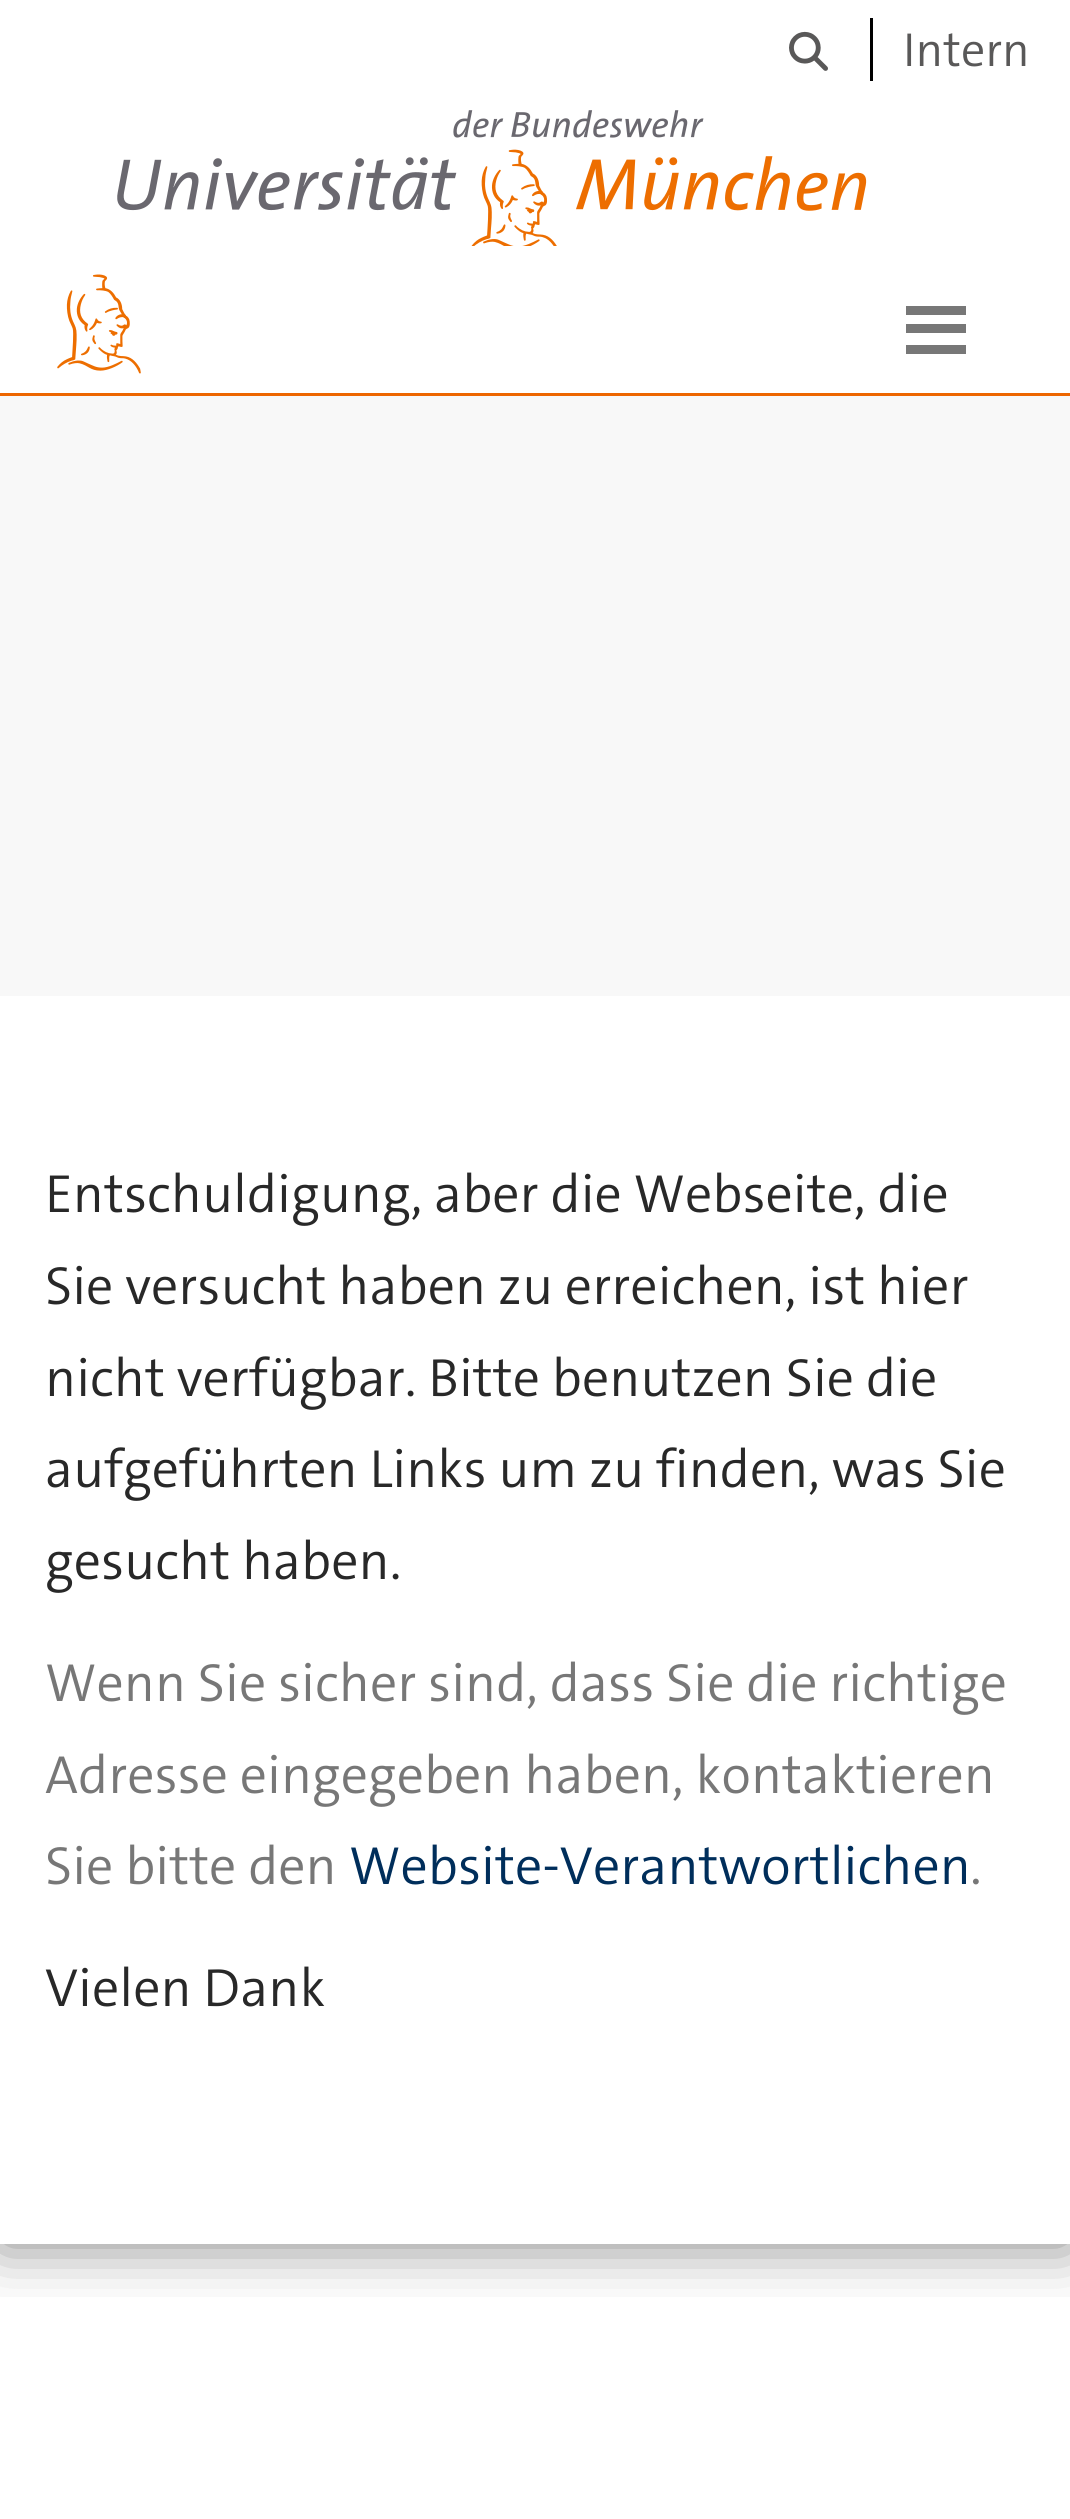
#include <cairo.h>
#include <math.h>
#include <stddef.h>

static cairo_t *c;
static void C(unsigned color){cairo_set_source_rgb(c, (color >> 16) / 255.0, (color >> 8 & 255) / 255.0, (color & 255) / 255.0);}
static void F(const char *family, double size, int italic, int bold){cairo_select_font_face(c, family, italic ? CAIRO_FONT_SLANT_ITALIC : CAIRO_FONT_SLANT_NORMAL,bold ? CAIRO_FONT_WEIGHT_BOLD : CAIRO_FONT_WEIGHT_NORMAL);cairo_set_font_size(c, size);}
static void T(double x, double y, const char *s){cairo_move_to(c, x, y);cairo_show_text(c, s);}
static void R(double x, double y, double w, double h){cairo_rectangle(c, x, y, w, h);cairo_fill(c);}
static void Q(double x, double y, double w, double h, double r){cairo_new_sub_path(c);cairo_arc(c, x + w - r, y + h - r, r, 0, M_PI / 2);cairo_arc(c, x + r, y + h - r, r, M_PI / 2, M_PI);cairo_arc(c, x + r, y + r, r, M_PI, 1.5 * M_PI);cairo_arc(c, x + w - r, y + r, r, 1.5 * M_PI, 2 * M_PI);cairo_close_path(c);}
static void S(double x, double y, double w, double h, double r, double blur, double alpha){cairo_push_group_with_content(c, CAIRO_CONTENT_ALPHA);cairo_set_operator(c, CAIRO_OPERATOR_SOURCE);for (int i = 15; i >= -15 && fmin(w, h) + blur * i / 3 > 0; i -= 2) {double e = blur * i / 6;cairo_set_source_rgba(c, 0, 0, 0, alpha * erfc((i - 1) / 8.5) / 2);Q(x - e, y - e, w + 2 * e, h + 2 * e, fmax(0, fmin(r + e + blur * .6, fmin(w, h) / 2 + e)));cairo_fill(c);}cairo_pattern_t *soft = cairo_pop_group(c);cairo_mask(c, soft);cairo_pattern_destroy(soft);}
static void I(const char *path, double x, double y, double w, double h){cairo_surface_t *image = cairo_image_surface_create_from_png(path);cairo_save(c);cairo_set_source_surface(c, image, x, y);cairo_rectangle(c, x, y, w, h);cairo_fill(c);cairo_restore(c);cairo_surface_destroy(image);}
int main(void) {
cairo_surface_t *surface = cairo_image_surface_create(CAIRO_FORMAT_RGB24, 1070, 2519);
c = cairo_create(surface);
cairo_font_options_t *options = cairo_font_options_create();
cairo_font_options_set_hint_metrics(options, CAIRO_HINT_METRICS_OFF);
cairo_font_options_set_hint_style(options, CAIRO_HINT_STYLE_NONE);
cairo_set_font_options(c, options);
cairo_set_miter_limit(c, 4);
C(0xffffff);
cairo_paint(c);
cairo_save(c);
cairo_rectangle(c,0,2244,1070,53);
cairo_clip(c);
C(0x000000);
S(0,0,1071,2244,0,30,.5);
cairo_restore(c);
C(0xed6600);
R(0,393,1070,3);
I("1.png",789,31,39,40);
F("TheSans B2 Light",48,0,0);
C(0x595858);
T(903,66,"Intern");
C(0x000000);
R(870,18,3,63);
I("2.png",471,149,86,97);
I("3.png",117,110,750,101);
I("4.png",57,274,84,100);
C(0x777777);
R(906,306,60,9);
R(906,324,60,9);
R(906,345,60,9);
C(0xf8f8f8);
R(0,396,1070,600);
F("TheSans B2 Light",54,0,0);
C(0x282828);
T(45,1212,"Entschuldigung, aber die Webseite, die");
T(45,1304,"Sie versucht haben zu erreichen, ist hier");
T(45,1396,"nicht verfügbar. Bitte benutzen Sie die");
T(45,1487,"aufgeführten Links um zu finden, was Sie");
T(45,1579,"gesucht haben.");
C(0x777777);
T(45,1701,"Wenn Sie sicher sind, dass Sie die richtige");
T(45,1793,"Adresse eingegeben haben, kontaktieren");
T(45,1884,"Sie bitte den");
C(0x002e5b);
T(349,1884,"Website-Verantwortlichen");
C(0x777777);
T(970,1884,".");
C(0x282828);
T(45,2006,"Vielen Dank");
cairo_surface_write_to_png(surface, "o.png");
cairo_font_options_destroy(options);
cairo_destroy(c);
cairo_surface_destroy(surface);
return 0;
}
